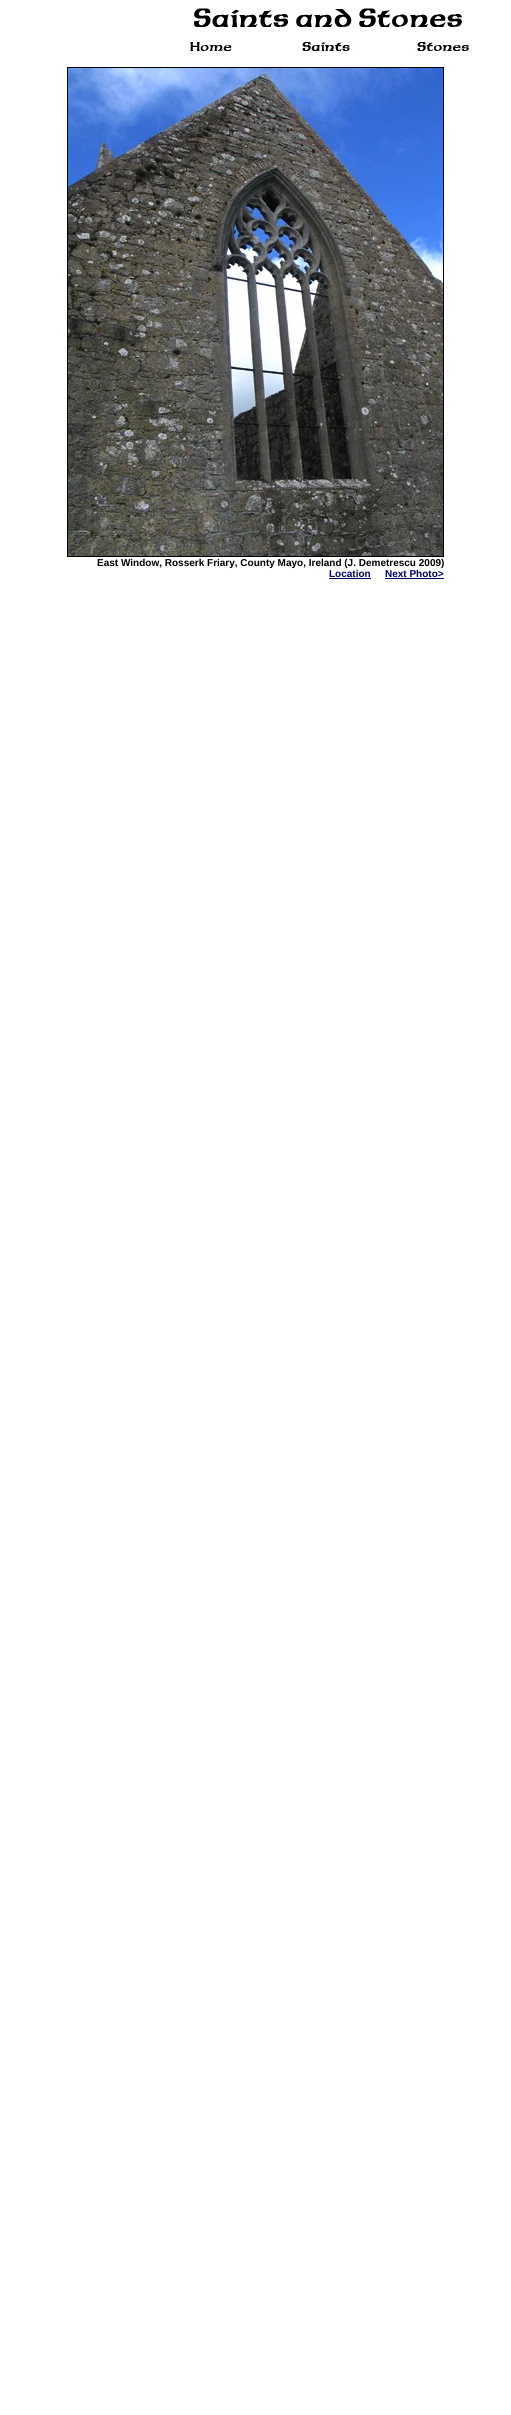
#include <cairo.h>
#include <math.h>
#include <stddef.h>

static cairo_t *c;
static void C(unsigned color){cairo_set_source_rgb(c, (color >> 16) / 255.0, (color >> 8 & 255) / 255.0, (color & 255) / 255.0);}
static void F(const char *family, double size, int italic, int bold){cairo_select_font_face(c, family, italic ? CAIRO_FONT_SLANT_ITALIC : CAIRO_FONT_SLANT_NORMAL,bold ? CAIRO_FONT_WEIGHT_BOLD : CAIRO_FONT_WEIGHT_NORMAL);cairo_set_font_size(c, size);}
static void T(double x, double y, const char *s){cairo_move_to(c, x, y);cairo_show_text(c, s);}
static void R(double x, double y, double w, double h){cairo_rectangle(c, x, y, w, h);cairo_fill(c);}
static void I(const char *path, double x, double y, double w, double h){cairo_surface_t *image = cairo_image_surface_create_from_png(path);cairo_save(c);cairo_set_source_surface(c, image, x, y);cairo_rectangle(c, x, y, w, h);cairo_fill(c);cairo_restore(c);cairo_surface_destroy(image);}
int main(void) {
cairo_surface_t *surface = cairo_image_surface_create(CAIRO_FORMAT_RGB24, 511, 2415);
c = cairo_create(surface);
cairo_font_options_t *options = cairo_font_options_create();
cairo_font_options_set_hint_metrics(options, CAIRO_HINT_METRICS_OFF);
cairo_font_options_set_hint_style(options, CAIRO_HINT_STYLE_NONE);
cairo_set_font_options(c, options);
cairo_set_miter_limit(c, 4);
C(0xffffff);
cairo_paint(c);
I("1.png",194,8,268,19);
I("2.png",190,42,42,9);
I("3.png",302,42,48,9);
I("4.png",417,42,52,9);
cairo_rectangle(c,67.5,67.5,376,489);
C(0x000000);
cairo_set_line_width(c,1);
cairo_stroke(c);
I("5.png",68,68,375,488);
F("Liberation Sans",10,0,1);
T(97,566,"East Window, Rosserk Friary, County Mayo, Ireland (J. Demetrescu 2009)");
C(0x000066);
T(329,577,"Location");
R(329,578,42,1);
T(385,577,"Next Photo>");
R(385,578,59,1);
cairo_surface_write_to_png(surface, "o.png");
cairo_font_options_destroy(options);
cairo_destroy(c);
cairo_surface_destroy(surface);
return 0;
}
